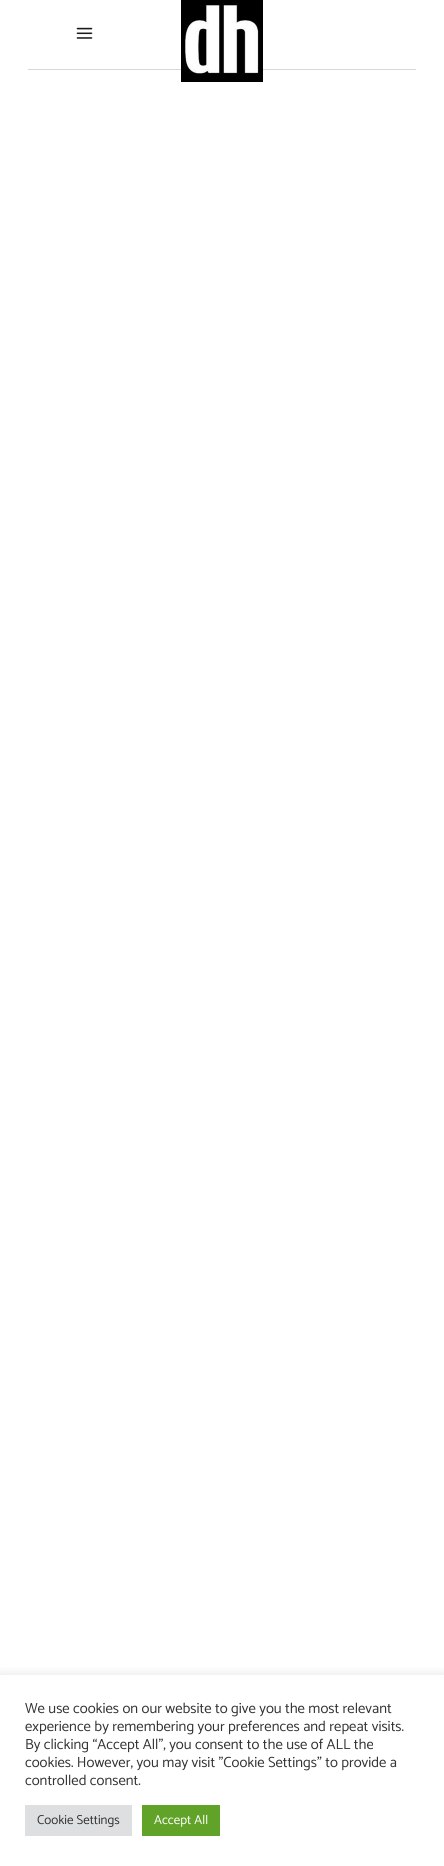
#include <cairo.h>
#include <math.h>
#include <stddef.h>

static cairo_t *c;
static void C(unsigned color){cairo_set_source_rgb(c, (color >> 16) / 255.0, (color >> 8 & 255) / 255.0, (color & 255) / 255.0);}
static void F(const char *family, double size, int italic, int bold){cairo_select_font_face(c, family, italic ? CAIRO_FONT_SLANT_ITALIC : CAIRO_FONT_SLANT_NORMAL,bold ? CAIRO_FONT_WEIGHT_BOLD : CAIRO_FONT_WEIGHT_NORMAL);cairo_set_font_size(c, size);}
static void T(double x, double y, const char *s){cairo_move_to(c, x, y);cairo_show_text(c, s);}
static void R(double x, double y, double w, double h){cairo_rectangle(c, x, y, w, h);cairo_fill(c);}
static void Q(double x, double y, double w, double h, double r){cairo_new_sub_path(c);cairo_arc(c, x + w - r, y + h - r, r, 0, M_PI / 2);cairo_arc(c, x + r, y + h - r, r, M_PI / 2, M_PI);cairo_arc(c, x + r, y + r, r, M_PI, 1.5 * M_PI);cairo_arc(c, x + w - r, y + r, r, 1.5 * M_PI, 2 * M_PI);cairo_close_path(c);}
static void S(double x, double y, double w, double h, double r, double blur, double alpha){cairo_push_group_with_content(c, CAIRO_CONTENT_ALPHA);cairo_set_operator(c, CAIRO_OPERATOR_SOURCE);for (int i = 15; i >= -15 && fmin(w, h) + blur * i / 3 > 0; i -= 2) {double e = blur * i / 6;cairo_set_source_rgba(c, 0, 0, 0, alpha * erfc((i - 1) / 8.5) / 2);Q(x - e, y - e, w + 2 * e, h + 2 * e, fmax(0, fmin(r + e + blur * .6, fmin(w, h) / 2 + e)));cairo_fill(c);}cairo_pattern_t *soft = cairo_pop_group(c);cairo_mask(c, soft);cairo_pattern_destroy(soft);}
static void I(const char *path, double x, double y, double w, double h){cairo_surface_t *image = cairo_image_surface_create_from_png(path);cairo_save(c);cairo_set_source_surface(c, image, x, y);cairo_rectangle(c, x, y, w, h);cairo_fill(c);cairo_restore(c);cairo_surface_destroy(image);}
int main(void) {
cairo_surface_t *surface = cairo_image_surface_create(CAIRO_FORMAT_RGB24, 444, 1866);
c = cairo_create(surface);
cairo_font_options_t *options = cairo_font_options_create();
cairo_font_options_set_hint_metrics(options, CAIRO_HINT_METRICS_OFF);
cairo_font_options_set_hint_style(options, CAIRO_HINT_STYLE_NONE);
cairo_set_font_options(c, options);
cairo_set_miter_limit(c, 4);
C(0xffffff);
cairo_paint(c);
C(0xd7d7d7);
R(28,69,388,1);
I("1.png",76,27,17,12);
I("2.png",181,0,82,82);
cairo_save(c);
cairo_rectangle(c,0,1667,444,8);
cairo_clip(c);
C(0xacabab);
S(0,1674,444,191,0,5,.3);
cairo_restore(c);
F("Catamaran",14.7,0,0);
C(0x333333);
T(25,1713,"We use cookies on our website to give you the most relevant");
T(25,1731,"experience by remembering your preferences and repeat visits.");
T(25,1749,"By clicking “Accept All”, you consent to the use of ALL the");
T(25,1767,"cookies. However, you may visit \"Cookie Settings\" to provide a");
T(25,1785,"controlled consent.");
C(0xdedfe0);
R(25,1805,107,31);
F("Catamaran",13,0,0);
C(0x333333);
T(37,1824,"Cookie Settings");
C(0x61a229);
R(142,1805,78,31);
C(0xffffff);
T(154,1824,"Accept All");
cairo_surface_write_to_png(surface, "o.png");
cairo_font_options_destroy(options);
cairo_destroy(c);
cairo_surface_destroy(surface);
return 0;
}
